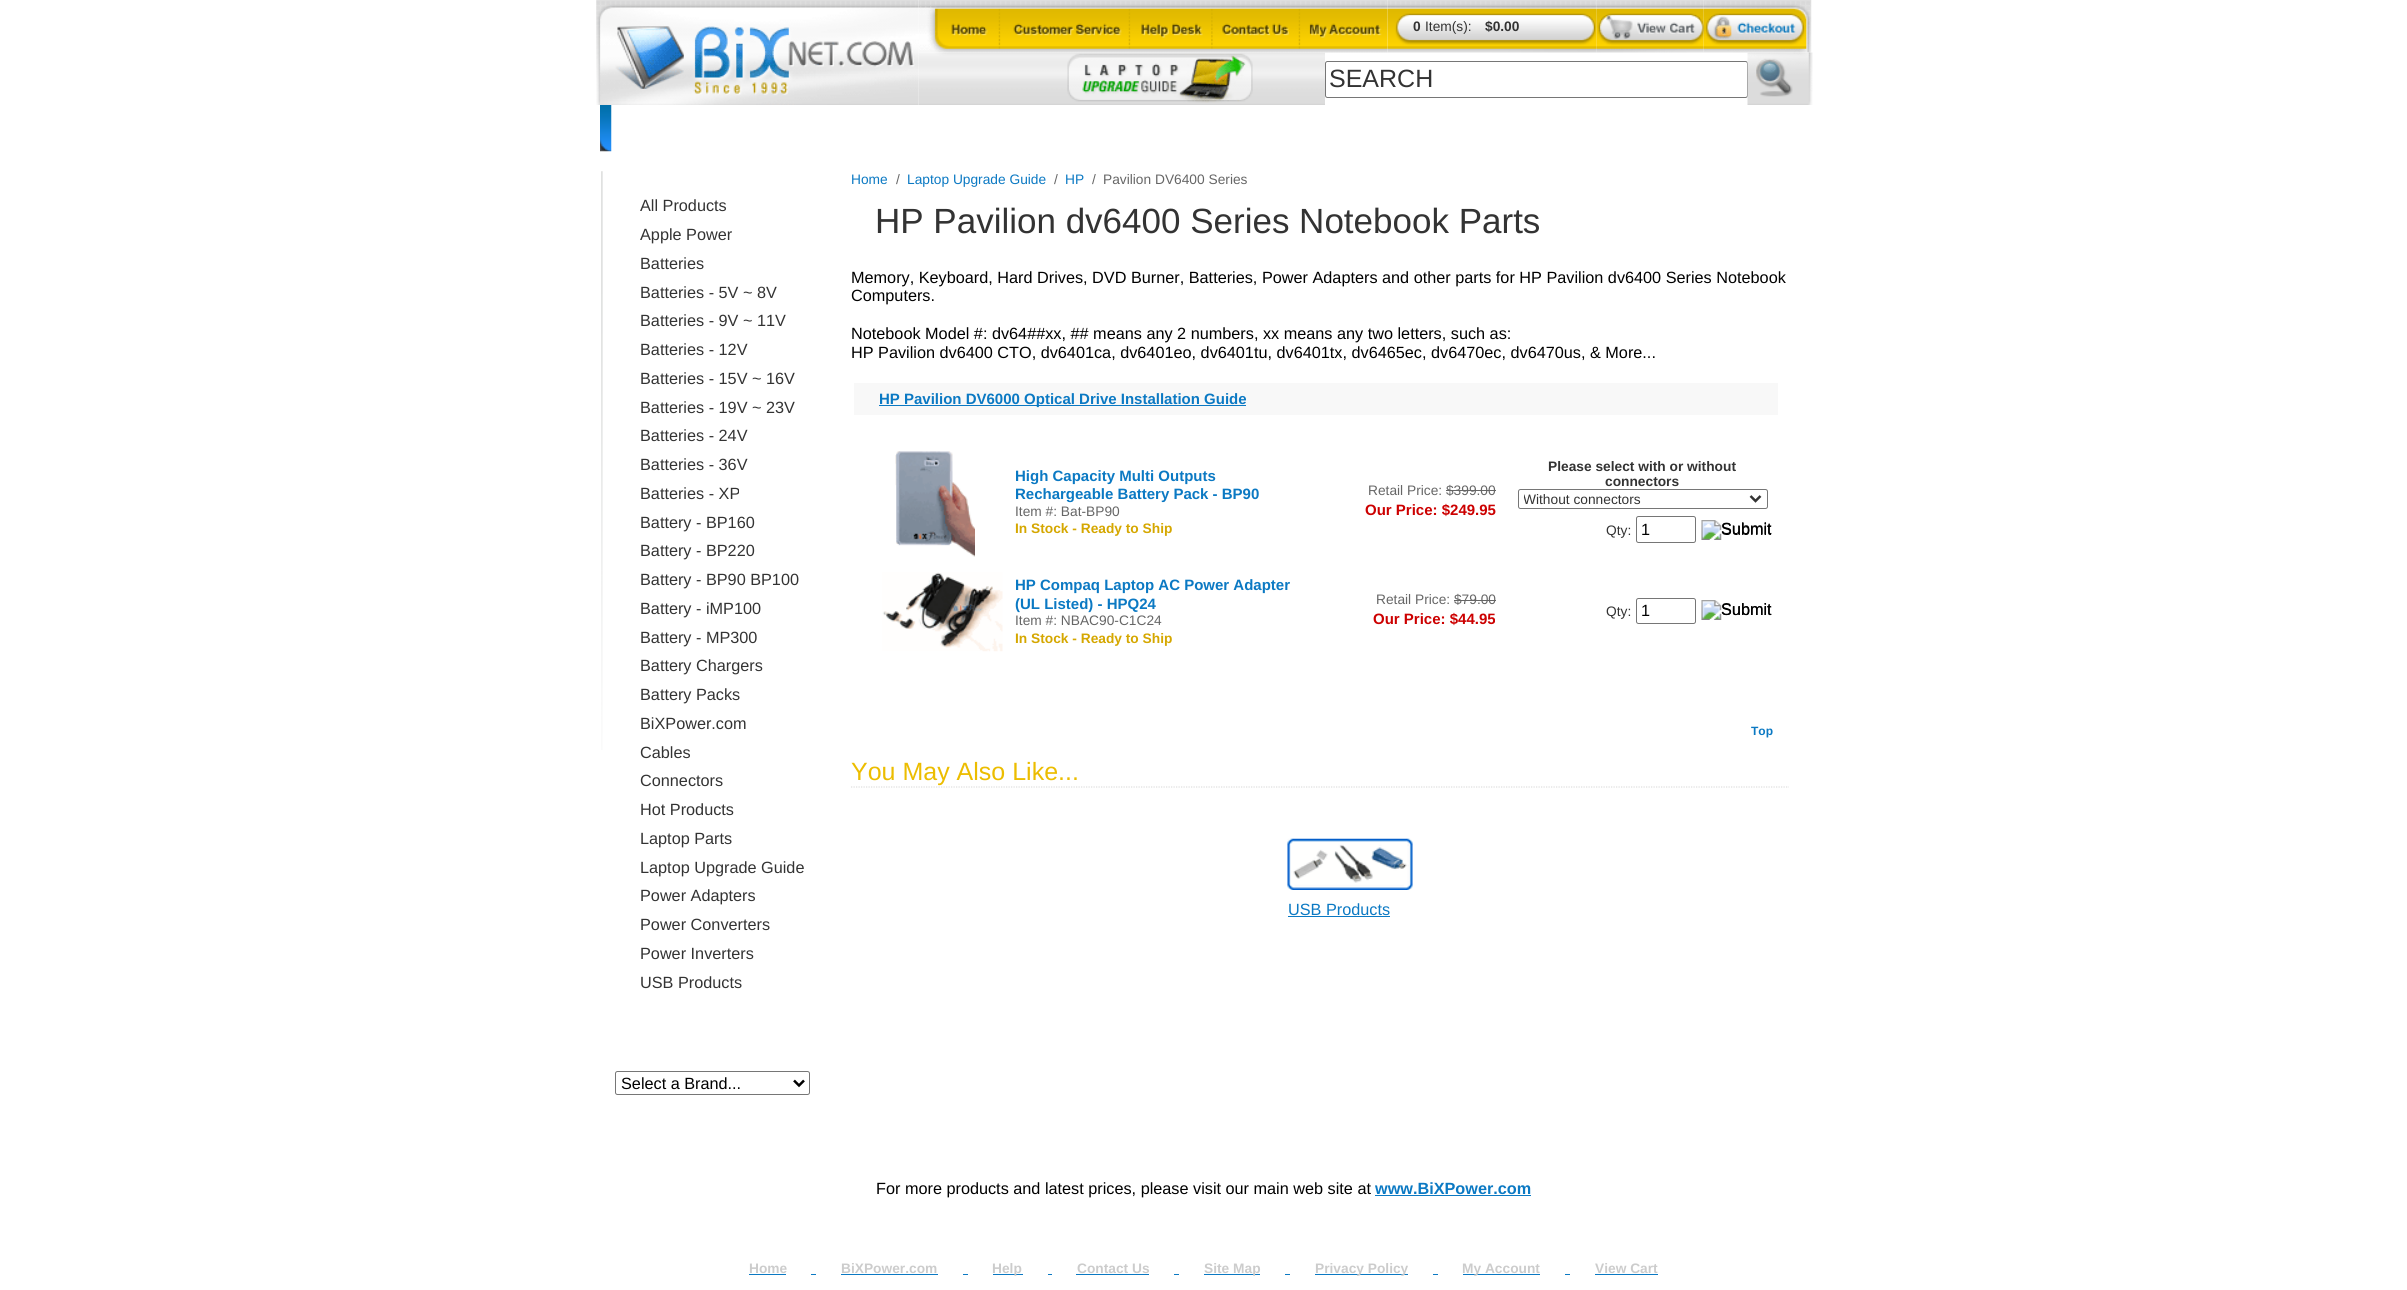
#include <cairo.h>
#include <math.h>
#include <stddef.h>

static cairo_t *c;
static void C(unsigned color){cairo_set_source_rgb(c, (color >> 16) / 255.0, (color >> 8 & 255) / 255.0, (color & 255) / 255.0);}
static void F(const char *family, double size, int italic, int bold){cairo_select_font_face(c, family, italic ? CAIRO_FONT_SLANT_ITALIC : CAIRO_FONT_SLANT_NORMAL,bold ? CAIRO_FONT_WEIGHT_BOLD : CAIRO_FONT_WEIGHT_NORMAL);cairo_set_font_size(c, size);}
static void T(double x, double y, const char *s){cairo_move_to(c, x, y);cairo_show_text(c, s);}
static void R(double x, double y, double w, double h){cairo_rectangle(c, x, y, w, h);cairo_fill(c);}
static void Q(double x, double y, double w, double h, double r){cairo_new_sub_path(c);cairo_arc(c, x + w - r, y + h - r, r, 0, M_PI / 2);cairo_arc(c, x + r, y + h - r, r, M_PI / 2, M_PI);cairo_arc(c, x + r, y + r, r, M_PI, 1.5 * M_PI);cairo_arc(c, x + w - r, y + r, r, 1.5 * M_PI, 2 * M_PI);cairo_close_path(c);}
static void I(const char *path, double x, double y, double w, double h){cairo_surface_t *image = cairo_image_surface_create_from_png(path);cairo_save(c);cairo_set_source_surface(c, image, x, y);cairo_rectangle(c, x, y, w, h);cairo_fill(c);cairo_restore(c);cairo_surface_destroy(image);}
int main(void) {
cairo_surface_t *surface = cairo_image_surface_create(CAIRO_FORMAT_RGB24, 2407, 1290);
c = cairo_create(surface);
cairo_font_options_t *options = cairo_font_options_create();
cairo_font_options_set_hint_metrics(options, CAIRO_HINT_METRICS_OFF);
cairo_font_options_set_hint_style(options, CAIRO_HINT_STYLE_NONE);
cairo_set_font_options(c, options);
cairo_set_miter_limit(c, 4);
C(0xffffff);
cairo_paint(c);
I("1.png",596,0,323,105);
I("3.png",1387,0,210,53);
I("2.png",919,0,469,53);
F("Liberation Sans",13.75,0,1);
C(0x333333);
T(1413,31,"0");
F("Liberation Sans",13.75,0,0);
T(1425,31,"Item(s):");
F("Liberation Sans",13.75,0,1);
T(1485,31,"$0.00");
I("4.png",1596,0,108,53);
I("5.png",1703,0,109,53);
I("6.png",919,52,406,53);
Q(1325.5,61.5,422,36,2);
C(0x767676);
cairo_set_line_width(c,1);
cairo_stroke(c);
F("Liberation Sans",25,0,0);
C(0x333333);
T(1329,87,"SEARCH");
I("7.png",1747,52,66,53);
I("8.png",600,105,12,47);
I("9.png",601,171,2,579);
F("Liberation Sans",16.25,0,0);
T(640,211,"All Products");
T(640,240,"Apple Power");
T(640,269,"Batteries");
T(640,298,"Batteries - 5V ~ 8V");
T(640,326,"Batteries - 9V ~ 11V");
T(640,355,"Batteries - 12V");
T(640,384,"Batteries - 15V ~ 16V");
T(640,413,"Batteries - 19V ~ 23V");
T(640,441,"Batteries - 24V");
T(640,470,"Batteries - 36V");
T(640,499,"Batteries - XP");
T(640,528,"Battery - BP160");
T(640,556,"Battery - BP220");
T(640,585,"Battery - BP90 BP100");
T(640,614,"Battery - iMP100");
T(640,643,"Battery - MP300");
T(640,671,"Battery Chargers");
T(640,700,"Battery Packs");
T(640,729,"BiXPower.com");
T(640,758,"Cables");
T(640,786,"Connectors");
T(640,815,"Hot Products");
T(640,844,"Laptop Parts");
T(640,873,"Laptop Upgrade Guide");
T(640,901,"Power Adapters");
T(640,930,"Power Converters");
T(640,959,"Power Inverters");
T(640,988,"USB Products");
Q(615.5,1071.5,194,23,2);
C(0x767676);
cairo_stroke(c);
cairo_new_path(c);
cairo_move_to(c,794,1080.5);
cairo_line_to(c,799,1085.5);
cairo_line_to(c,804,1080.5);
C(0x000000);
cairo_set_line_width(c,2.5);
cairo_stroke(c);
T(621,1089,"Select a Brand...");
F("Liberation Sans",13.75,0,0);
C(0x0b79c3);
T(851,184,"Home");
C(0x666666);
T(896,184,"/");
C(0x0b79c3);
T(907,184,"Laptop Upgrade Guide");
C(0x666666);
T(1054,184,"/");
C(0x0b79c3);
T(1065,184,"HP");
C(0x666666);
T(1092,184,"/");
T(1103,184,"Pavilion DV6400 Series");
F("Liberation Sans",35,0,0);
C(0x333333);
T(875,233,"HP Pavilion dv6400 Series Notebook Parts");
F("Liberation Sans",16.25,0,0);
C(0x000000);
T(851,283,"Memory, Keyboard, Hard Drives, DVD Burner, Batteries, Power Adapters and other parts for HP Pavilion dv6400 Series Notebook");
T(851,301,"Computers.");
T(851,339,"Notebook Model #: dv64##xx, ## means any 2 numbers, xx means any two letters, such as:");
T(851,358,"HP Pavilion dv6400 CTO, dv6401ca, dv6401eo, dv6401tu, dv6401tx, dv6465ec, dv6470ec, dv6470us, & More...");
C(0xf8f8f8);
R(854,383,924,32);
C(0x0b79c3);
R(879,405,367,1);
F("Liberation Sans",15,0,1);
T(879,404,"HP Pavilion DV6000 Optical Drive Installation Guide");
I("10.png",895,451,80,106);
T(1015,481,"High Capacity Multi Outputs");
T(1015,499,"Rechargeable Battery Pack - BP90");
F("Liberation Sans",13.75,0,0);
C(0x666666);
T(1015,516,"Item #: Bat-BP90");
F("Liberation Sans",13.75,0,1);
C(0xd5a700);
T(1015,533,"In Stock - Ready to Ship");
F("Liberation Sans",13.75,0,0);
C(0x666666);
T(1368,495,"Retail Price: $399.00");
R(1446,490,50,1);
F("Liberation Sans",15,0,1);
C(0xcc0000);
T(1365,515,"Our Price: $249.95");
F("Liberation Sans",13.75,0,1);
C(0x333333);
T(1548,471,"Please select with or without");
T(1605,486,"connectors");
Q(1518.5,489.5,249,19,2);
C(0x767676);
cairo_set_line_width(c,1);
cairo_stroke(c);
cairo_new_path(c);
cairo_move_to(c,1750.5,496);
cairo_line_to(c,1755.5,501);
cairo_line_to(c,1760.5,496);
C(0x333333);
cairo_set_line_width(c,2.5);
cairo_stroke(c);
cairo_save(c);
cairo_rectangle(c,1524,490,222,18);
cairo_clip(c);
F("Liberation Sans",13.75,0,0);
T(1523,504,"Without connectors");
cairo_restore(c);
F("Liberation Sans",13.75,0,0);
T(1606,535,"Qty:");
Q(1636.5,516.5,59,26,2);
C(0x767676);
cairo_set_line_width(c,1);
cairo_stroke(c);
F("Liberation Sans",16.25,0,0);
C(0x000000);
T(1641,535,"1");
I("11.png",1701,520,71,20);
T(1721,534,"Submit");
I("12.png",882,572,121,80);
F("Liberation Sans",15,0,1);
C(0x0b79c3);
T(1015,590,"HP Compaq Laptop AC Power Adapter");
T(1015,609,"(UL Listed) - HPQ24");
F("Liberation Sans",13.75,0,0);
C(0x666666);
T(1015,625,"Item #: NBAC90-C1C24");
F("Liberation Sans",13.75,0,1);
C(0xd5a700);
T(1015,643,"In Stock - Ready to Ship");
F("Liberation Sans",13.75,0,0);
C(0x666666);
T(1376,604,"Retail Price: $79.00");
R(1454,600,42,1);
F("Liberation Sans",15,0,1);
C(0xcc0000);
T(1373,624,"Our Price: $44.95");
F("Liberation Sans",13.75,0,0);
C(0x333333);
T(1606,616,"Qty:");
Q(1636.5,598.5,59,25,2);
C(0x767676);
cairo_stroke(c);
F("Liberation Sans",16.25,0,0);
C(0x000000);
T(1641,616,"1");
I("11.png",1701,600,71,20);
T(1721,615,"Submit");
F("Liberation Sans",12,0,1);
C(0x0b79c3);
T(1751,735,"Top");
cairo_new_path(c);
cairo_move_to(c,851,787);
cairo_line_to(c,1789,787);
C(0xdedede);
cairo_set_line_width(c,1.2);
cairo_set_dash(c,(double[]){1.25,1.25},2,0);
cairo_stroke(c);
F("Liberation Sans",25,0,0);
C(0xecbd00);
T(851,780,"You May Also Like...");
I("13.png",1287,838,126,52);
F("Liberation Sans",16.25,0,0);
C(0x0b79c3);
T(1288,915,"USB Products");
R(1288,916,102,1);
C(0x000000);
T(876,1194,"For more products and latest prices, please visit our main web site at");
F("Liberation Sans",16.25,0,1);
C(0x0b79c3);
T(1375,1194,"www.BiXPower.com");
R(1375,1195,156,1);
F("Liberation Sans",13.75,0,1);
C(0xcccccc);
T(749,1273,"Home");
C(0x0b79c3);
R(749,1274,37,1);
C(0xcccccc);
T(841,1273,"BiXPower.com");
C(0x0b79c3);
R(841,1274,97,1);
R(993,1274,30,1);
C(0xcccccc);
T(992,1273,"Help");
T(1077,1273,"Contact Us");
C(0x0b79c3);
R(1076,1274,73,1);
R(1204,1274,56,1);
C(0xcccccc);
T(1204,1273,"Site Map");
C(0x0b79c3);
R(1315,1274,93,1);
C(0xcccccc);
T(1315,1273,"Privacy Policy");
C(0x0b79c3);
R(1463,1274,77,1);
C(0xcccccc);
T(1462,1273,"My Account");
T(1595,1273,"View Cart");
C(0x0b79c3);
R(1595,1274,63,1);
R(811,1274,5,1);
R(963,1274,5,1);
R(1048,1274,4,1);
R(1174,1274,5,1);
R(1285,1274,5,1);
R(1433,1274,5,1);
R(1565,1274,5,1);
cairo_surface_write_to_png(surface, "o.png");
cairo_font_options_destroy(options);
cairo_destroy(c);
cairo_surface_destroy(surface);
return 0;
}
